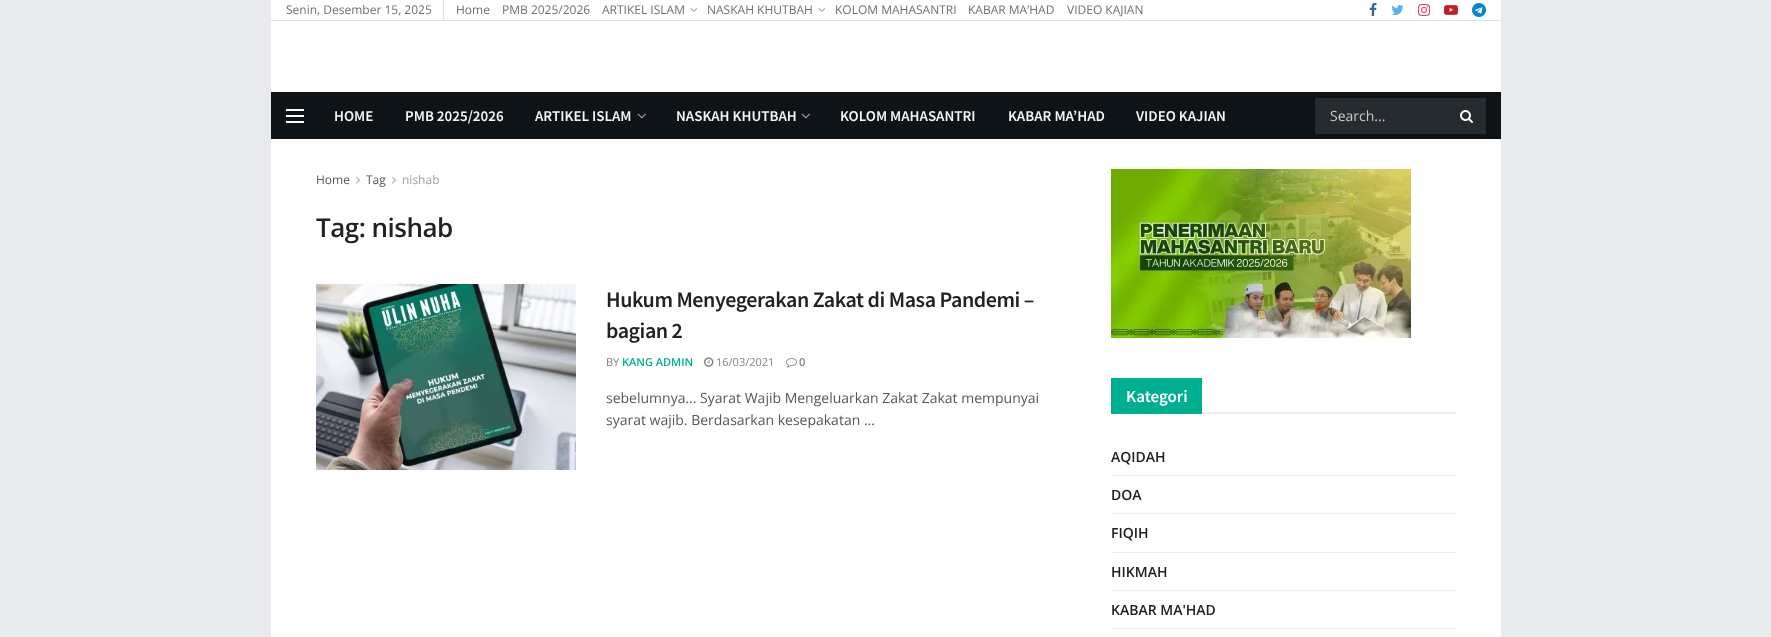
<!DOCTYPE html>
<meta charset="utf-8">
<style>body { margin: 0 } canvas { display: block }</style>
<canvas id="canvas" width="1771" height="637"></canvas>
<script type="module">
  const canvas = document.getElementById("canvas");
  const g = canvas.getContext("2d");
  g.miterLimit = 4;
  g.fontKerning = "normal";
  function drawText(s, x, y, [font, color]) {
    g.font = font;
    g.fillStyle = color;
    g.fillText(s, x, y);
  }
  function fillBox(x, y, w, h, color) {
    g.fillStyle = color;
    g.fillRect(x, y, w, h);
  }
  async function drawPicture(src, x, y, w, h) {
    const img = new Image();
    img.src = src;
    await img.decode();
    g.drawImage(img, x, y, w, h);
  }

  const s1 = ["12px Open Sans", "#6D7073"];
  const s2 = ["600 15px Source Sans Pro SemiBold", "#F5F5F5"];
  const s3 = ["14px Open Sans", "#C9CACB"];
  const s4 = ["12px Open Sans", "#53585C"];
  const s5 = ["12px Open Sans", "#A0A0A0"];
  const s6 = ["600 26px Open Sans", "#212121"];
  const s7 = ["600 22px Source Sans Pro SemiBold", "#212121"];
  const s8 = ["11px Open Sans", "#808386"];
  const s9 = ["600 11px Open Sans", "#00AF91"];
  const s10 = ["600 11px Open Sans", "#808386"];
  const s11 = ["14px Open Sans", "#53585C"];
  const s12 = ["600 17px Source Sans Pro SemiBold", "#FFFFFF"];
  const s13 = ["600 14px Open Sans", "#212121"];

  fillBox(0, 0, 1771, 637, "#E9EAED");
  fillBox(271, 0, 1230, 20, "#FFFFFF");
  fillBox(271, 20, 1230, 1, "#E0E0E0");
  fillBox(443, 0, 1, 20, "#E0E0E0");
  drawText("Senin, Desember 15, 2025", 286, 14, s1);
  drawText("Home", 456, 14, s1);
  drawText("PMB 2025/2026", 502, 14, s1);
  drawText("ARTIKEL ISLAM", 602, 14, s1);
  await drawPicture("pic1.png", 690, 8, 8, 4);
  drawText("NASKAH KHUTBAH", 707, 14, s1);
  await drawPicture("pic1.png", 818, 8, 8, 4);
  drawText("KOLOM MAHASANTRI", 835, 14, s1);
  drawText("KABAR MA’HAD", 968, 14, s1);
  drawText("VIDEO KAJIAN", 1067, 14, s1);
  await drawPicture("pic2.png", 1369, 3, 8, 13);
  await drawPicture("pic3.png", 1391, 5, 13, 10);
  await drawPicture("pic4.png", 1418, 4, 12, 12);
  await drawPicture("pic5.png", 1444, 5, 14, 10);
  await drawPicture("pic6.png", 1472, 3, 14, 14);
  fillBox(271, 21, 1230, 71, "#FFFFFF");
  fillBox(271, 92, 1230, 47, "#0D1317");
  fillBox(286, 109, 18, 2, "#FAFAFA");
  fillBox(286, 115, 18, 2, "#FAFAFA");
  fillBox(286, 121, 18, 2, "#FAFAFA");
  drawText("HOME", 334, 121, s2);
  drawText("PMB 2025/2026", 405, 121, s2);
  drawText("ARTIKEL ISLAM", 535, 121, s2);
  await drawPicture("pic7.png", 637, 113, 9, 6);
  drawText("NASKAH KHUTBAH", 676, 121, s2);
  await drawPicture("pic7.png", 801, 113, 9, 6);
  drawText("KOLOM MAHASANTRI", 840, 121, s2);
  drawText("KABAR MA’HAD", 1008, 121, s2);
  drawText("VIDEO KAJIAN", 1136, 121, s2);
  fillBox(1315, 98, 171, 36, "#252B2E");
  drawText("Search...", 1330, 121, s3);
  await drawPicture("pic8.png", 1460, 110, 13, 13);
  fillBox(271, 139, 1230, 498, "#FFFFFF");
  drawText("Home", 316, 184, s4);
  await drawPicture("pic9.png", 356, 176, 4, 8);
  drawText("Tag", 366, 184, s4);
  await drawPicture("pic9.png", 392, 176, 4, 8);
  drawText("nishab", 402, 184, s5);
  g.letterSpacing = "-0.5px";
  drawText("Tag: nishab", 316, 237, s6);
  await drawPicture("pic10.png", 316, 284, 260, 186);
  g.letterSpacing = "-0.45px";
  drawText("Hukum Menyegerakan Zakat di Masa Pandemi –", 606, 307, s7);
  drawText("bagian 2", 606, 338, s7);
  g.letterSpacing = "0px";
  drawText("BY", 606, 366, s8);
  drawText("KANG ADMIN", 622, 366, s9);
  await drawPicture("pic11.png", 704, 357, 10, 10);
  drawText("16/03/2021", 716, 366, s8);
  await drawPicture("pic12.png", 786, 358, 11, 10);
  drawText("0", 799, 366, s10);
  drawText("sebelumnya... Syarat Wajib Mengeluarkan Zakat Zakat mempunyai", 606, 403, s11);
  drawText("syarat wajib. Berdasarkan kesepakatan ...", 606, 425, s11);
  await drawPicture("pic13.png", 1111, 169, 300, 169);
  fillBox(1202, 412, 254, 2, "#EEEEEE");
  fillBox(1111, 378, 91, 36, "#00AF91");
  drawText("Kategori", 1126, 402, s12);
  drawText("AQIDAH", 1111, 462, s13);
  fillBox(1111, 475, 345, 1, "#EEEEEE");
  drawText("DOA", 1111, 500, s13);
  fillBox(1111, 513, 345, 1, "#EEEEEE");
  drawText("FIQIH", 1111, 538, s13);
  fillBox(1111, 552, 345, 1, "#EEEEEE");
  drawText("HIKMAH", 1111, 577, s13);
  fillBox(1111, 590, 345, 1, "#EEEEEE");
  drawText("KABAR MA'HAD", 1111, 615, s13);
  fillBox(1111, 628, 345, 1, "#EEEEEE");
</script>
